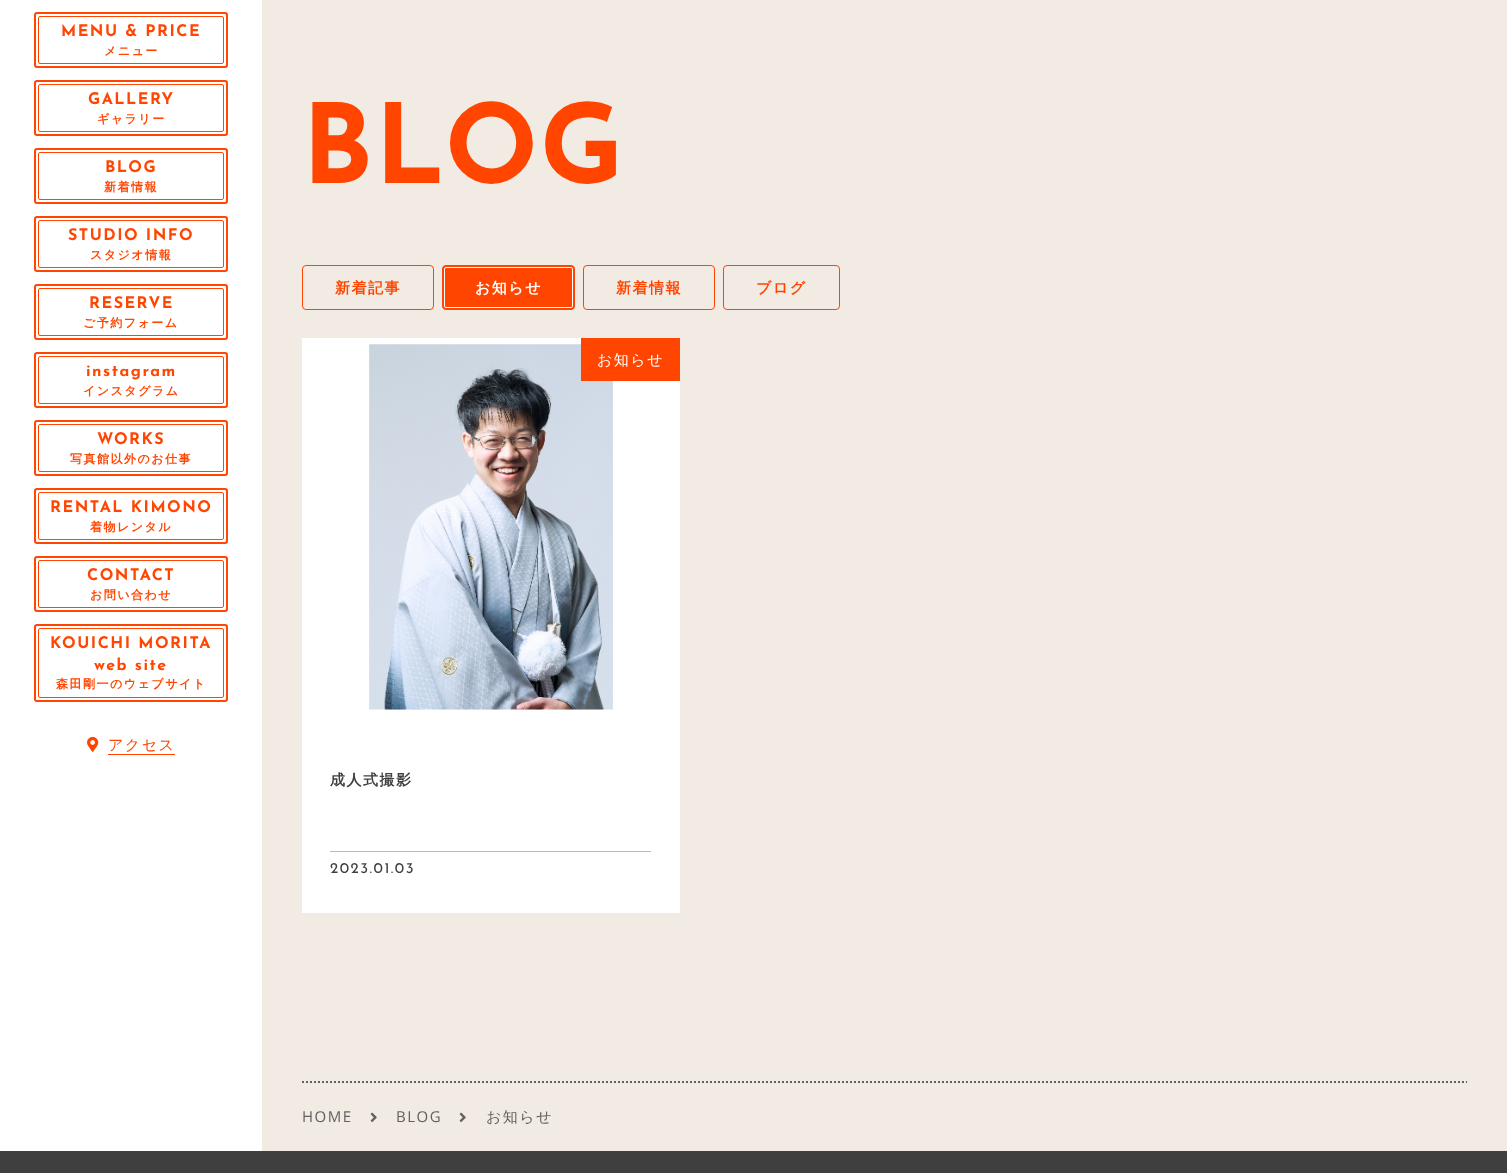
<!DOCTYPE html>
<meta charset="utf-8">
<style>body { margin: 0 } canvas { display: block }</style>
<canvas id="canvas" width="1507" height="1173"></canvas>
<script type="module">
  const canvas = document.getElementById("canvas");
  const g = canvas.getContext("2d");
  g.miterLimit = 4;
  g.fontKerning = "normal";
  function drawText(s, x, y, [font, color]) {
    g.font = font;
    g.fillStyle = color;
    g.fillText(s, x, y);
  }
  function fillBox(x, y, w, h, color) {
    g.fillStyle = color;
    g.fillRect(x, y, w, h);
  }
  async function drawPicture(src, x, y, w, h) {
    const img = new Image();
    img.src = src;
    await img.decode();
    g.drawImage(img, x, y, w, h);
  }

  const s1 = ["bold 16px Josefin Sans", "#FF4500"];
  const s2 = ["bold 12px WenQuanYi Zen Hei", "#FF4500"];
  const s3 = ["500 15px WenQuanYi Zen Hei", "#FF4500"];
  const s4 = ["bold 110px Josefin Sans", "#FF4500"];
  const s5 = ["bold 15px WenQuanYi Zen Hei", "#FF4500"];
  const s6 = ["bold 15px WenQuanYi Zen Hei", "#FFFFFF"];
  const s7 = ["500 15px WenQuanYi Zen Hei", "#FFFFFF"];
  const s8 = ["bold 15px WenQuanYi Zen Hei", "#3F3F3F"];
  const s9 = ["15px Josefin Sans", "#3F3F3F"];
  const s10 = ["15px Open Sans", "#636160"];
  const s11 = ["500 15px WenQuanYi Zen Hei", "#636160"];

  fillBox(0, 0, 1507, 1173, "#FFFFFF");
  g.beginPath();
  g.roundRect(35, 13, 192, 54, 2);
  g.strokeStyle = "#FF4500";
  g.lineWidth = 2;
  g.stroke();
  g.beginPath();
  g.roundRect(38.5, 16.5, 185, 47, 1.5);
  g.lineWidth = 1;
  g.stroke();
  g.letterSpacing = "1.5px";
  drawText("MENU & PRICE", 61, 36, s1);
  drawText("メニュー", 104, 55, s2);
  g.beginPath();
  g.roundRect(35, 81, 192, 54, 2);
  g.lineWidth = 2;
  g.stroke();
  g.beginPath();
  g.roundRect(38.5, 84.5, 185, 47, 1.5);
  g.lineWidth = 1;
  g.stroke();
  drawText("GALLERY", 88, 104, s1);
  drawText("ギャラリー", 97, 123, s2);
  g.beginPath();
  g.roundRect(35, 149, 192, 54, 2);
  g.lineWidth = 2;
  g.stroke();
  g.beginPath();
  g.roundRect(38.5, 152.5, 185, 47, 1.5);
  g.lineWidth = 1;
  g.stroke();
  drawText("BLOG", 105, 172, s1);
  drawText("新着情報", 104, 191, s2);
  g.beginPath();
  g.roundRect(35, 217, 192, 54, 2);
  g.lineWidth = 2;
  g.stroke();
  g.beginPath();
  g.roundRect(38.5, 220.5, 185, 47, 1.5);
  g.lineWidth = 1;
  g.stroke();
  drawText("STUDIO INFO", 68, 240, s1);
  drawText("スタジオ情報", 90, 259, s2);
  g.beginPath();
  g.roundRect(35, 285, 192, 54, 2);
  g.lineWidth = 2;
  g.stroke();
  g.beginPath();
  g.roundRect(38.5, 288.5, 185, 47, 1.5);
  g.lineWidth = 1;
  g.stroke();
  drawText("RESERVE", 89, 308, s1);
  drawText("ご予約フォーム", 83, 327, s2);
  g.beginPath();
  g.roundRect(35, 353, 192, 54, 2);
  g.lineWidth = 2;
  g.stroke();
  g.beginPath();
  g.roundRect(38.5, 356.5, 185, 47, 1.5);
  g.lineWidth = 1;
  g.stroke();
  drawText("instagram", 86, 376, s1);
  drawText("インスタグラム", 83, 395, s2);
  g.beginPath();
  g.roundRect(35, 421, 192, 54, 2);
  g.lineWidth = 2;
  g.stroke();
  g.beginPath();
  g.roundRect(38.5, 424.5, 185, 47, 1.5);
  g.lineWidth = 1;
  g.stroke();
  drawText("WORKS", 97, 444, s1);
  drawText("写真館以外のお仕事", 70, 463, s2);
  g.beginPath();
  g.roundRect(35, 489, 192, 54, 2);
  g.lineWidth = 2;
  g.stroke();
  g.beginPath();
  g.roundRect(38.5, 492.5, 185, 47, 1.5);
  g.lineWidth = 1;
  g.stroke();
  drawText("RENTAL KIMONO", 50, 512, s1);
  drawText("着物レンタル", 90, 531, s2);
  g.beginPath();
  g.roundRect(35, 557, 192, 54, 2);
  g.lineWidth = 2;
  g.stroke();
  g.beginPath();
  g.roundRect(38.5, 560.5, 185, 47, 1.5);
  g.lineWidth = 1;
  g.stroke();
  drawText("CONTACT", 87, 580, s1);
  drawText("お問い合わせ", 90, 599, s2);
  g.beginPath();
  g.roundRect(35, 625, 192, 76, 2);
  g.lineWidth = 2;
  g.stroke();
  g.beginPath();
  g.roundRect(38.5, 628.5, 185, 69, 1.5);
  g.lineWidth = 1;
  g.stroke();
  drawText("KOUICHI MORITA", 50, 648, s1);
  drawText("web site", 94, 670, s1);
  drawText("森田剛一のウェブサイト", 56, 688, s2);
  await drawPicture("pic1.png", 87, 736, 12, 16);
  drawText("アクセス", 108, 750, s3);
  fillBox(108, 754, 67, 1, "#FF4500");
  fillBox(262, 0, 1245, 1151, "#F2EBE3");
  drawText("BLOG", 302, 183, s4);
  g.beginPath();
  g.roundRect(302.5, 265.5, 131, 44, 3.5);
  g.stroke();
  drawText("新着記事", 335, 293, s5);
  g.beginPath();
  g.roundRect(442.5, 265.5, 132, 44, 3.5);
  g.fill();
  g.stroke();
  g.beginPath();
  g.roundRect(444.5, 267.5, 128, 40, 1.5);
  g.strokeStyle = "#FFFFFF";
  g.stroke();
  drawText("お知らせ", 475, 293, s6);
  g.beginPath();
  g.roundRect(583.5, 265.5, 131, 44, 3.5);
  g.strokeStyle = "#FF4500";
  g.stroke();
  drawText("新着情報", 616, 293, s5);
  g.beginPath();
  g.roundRect(723.5, 265.5, 116, 44, 3.5);
  g.stroke();
  drawText("ブログ", 756, 293, s5);
  fillBox(302, 338, 378, 575, "#FFFFFF");
  await drawPicture("pic2.png", 369, 344, 244, 366);
  fillBox(581, 338, 99, 43, "#FF4500");
  drawText("お知らせ", 597, 365, s7);
  drawText("成人式撮影", 330, 785, s8);
  fillBox(330, 851, 321, 1, "#BDBBBA");
  drawText("2023.01.03", 330, 873, s9);
  g.beginPath();
  g.moveTo(302, 1082);
  g.lineTo(1467, 1082);
  g.strokeStyle = "#636160";
  g.lineWidth = 2;
  g.setLineDash([2, 2]);
  g.stroke();
  drawText("HOME", 302, 1122, s10);
  await drawPicture("pic3.png", 370, 1112, 7, 10);
  drawText("BLOG", 396, 1122, s10);
  await drawPicture("pic3.png", 459, 1112, 7, 10);
  drawText("お知らせ", 486, 1122, s11);
  fillBox(0, 1151, 1507, 22, "#3F3F3F");
</script>
